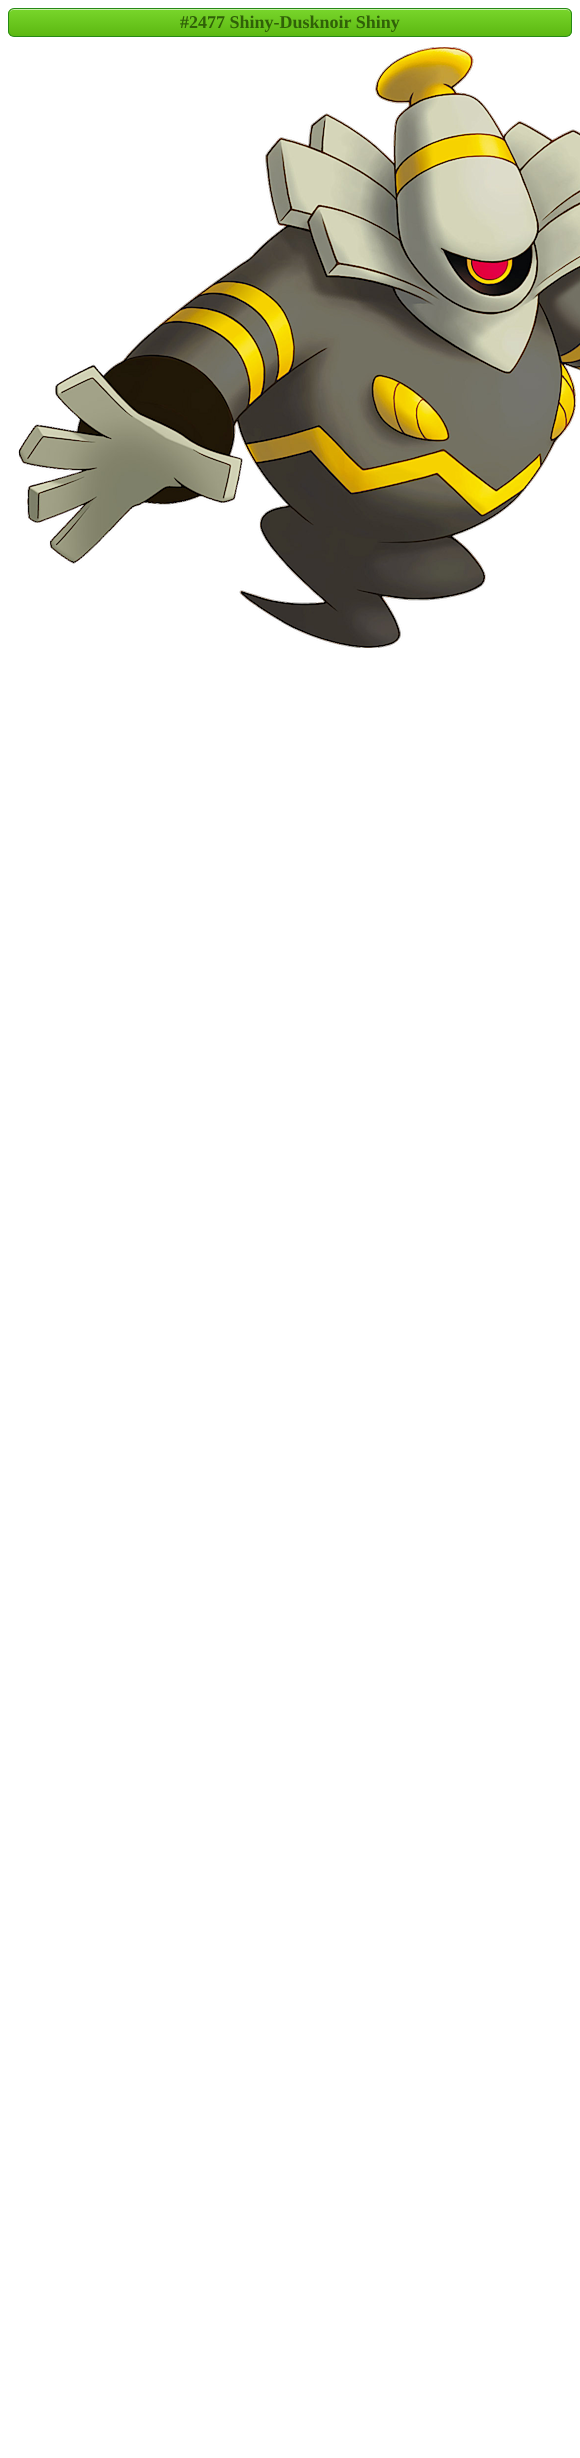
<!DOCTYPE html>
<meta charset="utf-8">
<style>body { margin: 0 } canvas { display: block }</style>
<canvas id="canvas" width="580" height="2458"></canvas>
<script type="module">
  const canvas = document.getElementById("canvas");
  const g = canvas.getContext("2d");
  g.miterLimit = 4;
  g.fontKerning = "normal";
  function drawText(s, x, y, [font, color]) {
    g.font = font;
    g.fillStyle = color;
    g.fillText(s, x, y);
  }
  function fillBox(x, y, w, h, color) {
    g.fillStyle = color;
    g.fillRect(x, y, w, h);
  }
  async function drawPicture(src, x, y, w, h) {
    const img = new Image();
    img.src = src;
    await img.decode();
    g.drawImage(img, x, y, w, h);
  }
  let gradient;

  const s1 = ["bold 18px Liberation Serif", "#306108"];

  fillBox(0, 0, 580, 2458, "#FFFFFF");
  g.save();
  g.beginPath();
  g.roundRect(8, 8, 564, 29, 6);
  g.clip();
  gradient = g.createLinearGradient(290, 9, 290, 36);
  gradient.addColorStop(0.05, "#77D42A");
  gradient.addColorStop(1, "#5CB811");
  g.fillStyle = gradient;
  g.fillRect(8, 9, 564, 27);
  g.restore();
  g.fillStyle = "#CAEFAB";
  g.beginPath();
  g.moveTo(14, 10);
  g.lineTo(566, 10);
  g.bezierCurveTo(569, 10, 571, 12, 571, 15);
  g.bezierCurveTo(571, 12, 569, 9, 566, 9);
  g.lineTo(14, 9);
  g.bezierCurveTo(11, 9, 9, 12, 9, 15);
  g.bezierCurveTo(9, 12, 11, 10, 14, 10);
  g.closePath();
  g.fill();
  g.beginPath();
  g.roundRect(8.5, 8.5, 563, 28, 5.5);
  g.strokeStyle = "#268A16";
  g.stroke();
  drawText("#2477 Shiny-Dusknoir Shiny", 180, 28, s1);
  await drawPicture("pic1.png", 18, 47, 562, 601);
</script>
